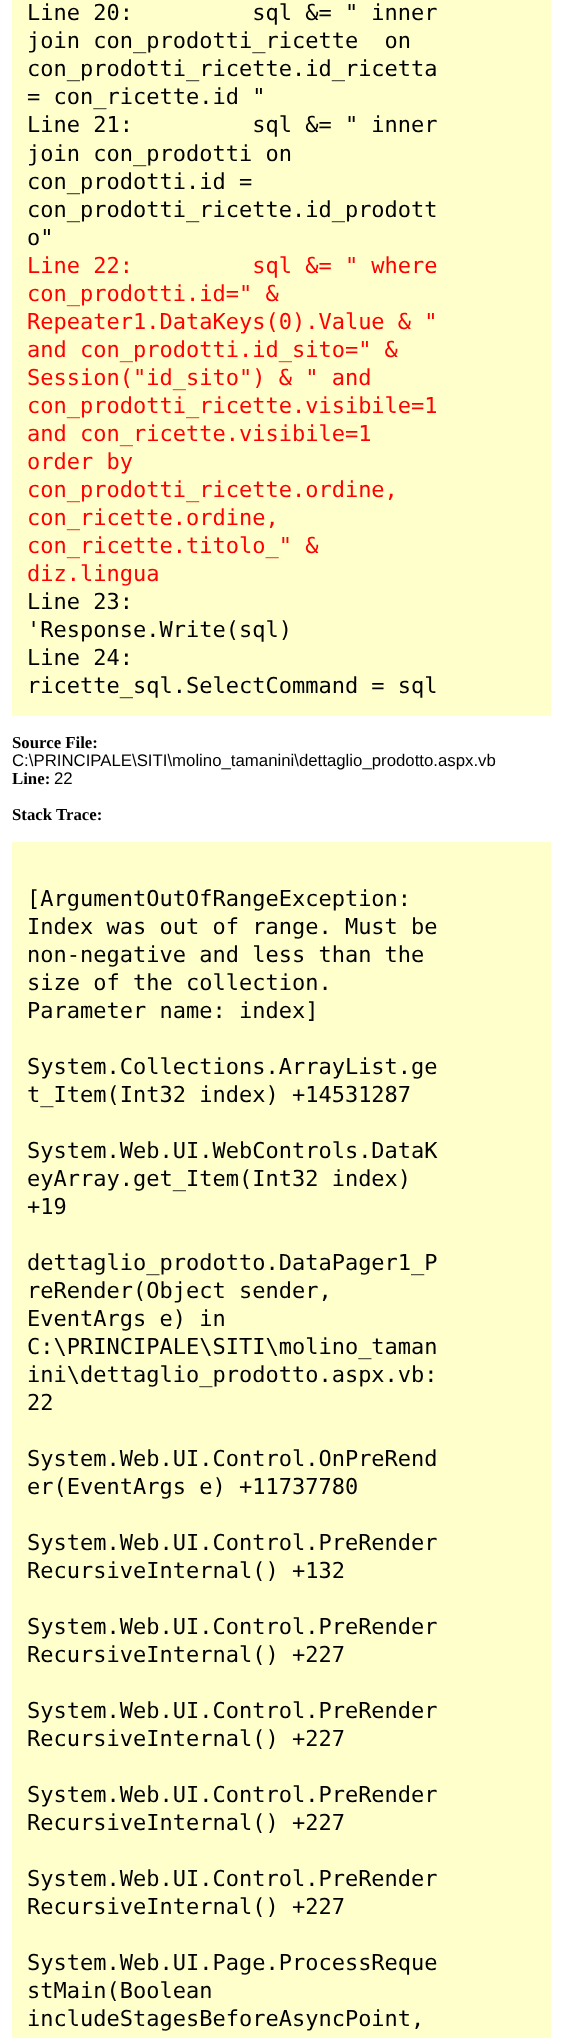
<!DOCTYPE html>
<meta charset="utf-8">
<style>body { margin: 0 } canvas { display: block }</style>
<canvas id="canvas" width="562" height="2038"></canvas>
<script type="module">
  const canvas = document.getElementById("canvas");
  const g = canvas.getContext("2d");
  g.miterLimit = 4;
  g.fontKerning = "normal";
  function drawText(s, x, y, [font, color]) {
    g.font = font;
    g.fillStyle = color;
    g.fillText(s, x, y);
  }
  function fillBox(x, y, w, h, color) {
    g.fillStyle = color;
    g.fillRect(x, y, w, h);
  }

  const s1 = ["22px DejaVu Sans Mono", "#000000"];
  const s2 = ["22px DejaVu Sans Mono", "#FF0000"];
  const s3 = ["bold 16.8px Liberation Serif", "#000000"];
  const s4 = ["16.8px Liberation Sans", "#000000"];

  fillBox(0, 0, 562, 2038, "#FFFFFF");
  fillBox(12, 0, 539, 716, "#FFFFCC");
  drawText("Line 20:         sql &= \" inner", 27, 20, s1);
  drawText("join con_prodotti_ricette  on", 27, 48, s1);
  drawText("con_prodotti_ricette.id_ricetta", 27, 76, s1);
  drawText("= con_ricette.id \"", 27, 104, s1);
  drawText("Line 21:         sql &= \" inner", 27, 132, s1);
  drawText("join con_prodotti on", 27, 161, s1);
  drawText("con_prodotti.id =", 27, 189, s1);
  drawText("con_prodotti_ricette.id_prodott", 27, 217, s1);
  drawText("o\"", 27, 245, s1);
  drawText("Line 22:         sql &= \" where", 27, 273, s2);
  drawText("con_prodotti.id=\" &", 27, 301, s2);
  drawText("Repeater1.DataKeys(0).Value & \"", 27, 329, s2);
  drawText("and con_prodotti.id_sito=\" &", 27, 357, s2);
  drawText("Session(\"id_sito\") & \" and", 27, 385, s2);
  drawText("con_prodotti_ricette.visibile=1", 27, 413, s2);
  drawText("and con_ricette.visibile=1", 27, 441, s2);
  drawText("order by", 27, 469, s2);
  drawText("con_prodotti_ricette.ordine,", 27, 497, s2);
  drawText("con_ricette.ordine,", 27, 525, s2);
  drawText("con_ricette.titolo_\" &", 27, 553, s2);
  drawText("diz.lingua", 27, 581, s2);
  drawText("Line 23:", 27, 609, s1);
  drawText("'Response.Write(sql)", 27, 637, s1);
  drawText("Line 24:", 27, 665, s1);
  drawText("ricette_sql.SelectCommand = sql", 27, 693, s1);
  drawText("Source File:", 12, 748, s3);
  drawText("C:\\PRINCIPALE\\SITI\\molino_tamanini\\dettaglio_prodotto.aspx.vb", 12, 766, s4);
  drawText("Line:", 12, 784, s3);
  drawText("22", 54, 784, s4);
  drawText("Stack Trace:", 12, 820, s3);
  fillBox(12, 842, 539, 1196, "#FFFFCC");
  drawText("[ArgumentOutOfRangeException:", 27, 906, s1);
  drawText("Index was out of range. Must be", 27, 934, s1);
  drawText("non-negative and less than the", 27, 962, s1);
  drawText("size of the collection.", 27, 990, s1);
  drawText("Parameter name: index]", 27, 1018, s1);
  drawText("System.Collections.ArrayList.ge", 27, 1074, s1);
  drawText("t_Item(Int32 index) +14531287", 27, 1102, s1);
  drawText("System.Web.UI.WebControls.DataK", 27, 1158, s1);
  drawText("eyArray.get_Item(Int32 index)", 27, 1186, s1);
  drawText("+19", 27, 1214, s1);
  drawText("dettaglio_prodotto.DataPager1_P", 27, 1270, s1);
  drawText("reRender(Object sender,", 27, 1298, s1);
  drawText("EventArgs e) in", 27, 1326, s1);
  drawText("C:\\PRINCIPALE\\SITI\\molino_taman", 27, 1354, s1);
  drawText("ini\\dettaglio_prodotto.aspx.vb:", 27, 1382, s1);
  drawText("22", 27, 1410, s1);
  drawText("System.Web.UI.Control.OnPreRend", 27, 1466, s1);
  drawText("er(EventArgs e) +11737780", 27, 1494, s1);
  drawText("System.Web.UI.Control.PreRender", 27, 1550, s1);
  drawText("RecursiveInternal() +132", 27, 1578, s1);
  drawText("System.Web.UI.Control.PreRender", 27, 1634, s1);
  drawText("RecursiveInternal() +227", 27, 1662, s1);
  drawText("System.Web.UI.Control.PreRender", 27, 1718, s1);
  drawText("RecursiveInternal() +227", 27, 1746, s1);
  drawText("System.Web.UI.Control.PreRender", 27, 1802, s1);
  drawText("RecursiveInternal() +227", 27, 1830, s1);
  drawText("System.Web.UI.Control.PreRender", 27, 1886, s1);
  drawText("RecursiveInternal() +227", 27, 1914, s1);
  drawText("System.Web.UI.Page.ProcessReque", 27, 1970, s1);
  drawText("stMain(Boolean", 27, 1998, s1);
  drawText("includeStagesBeforeAsyncPoint,", 27, 2026, s1);
</script>
